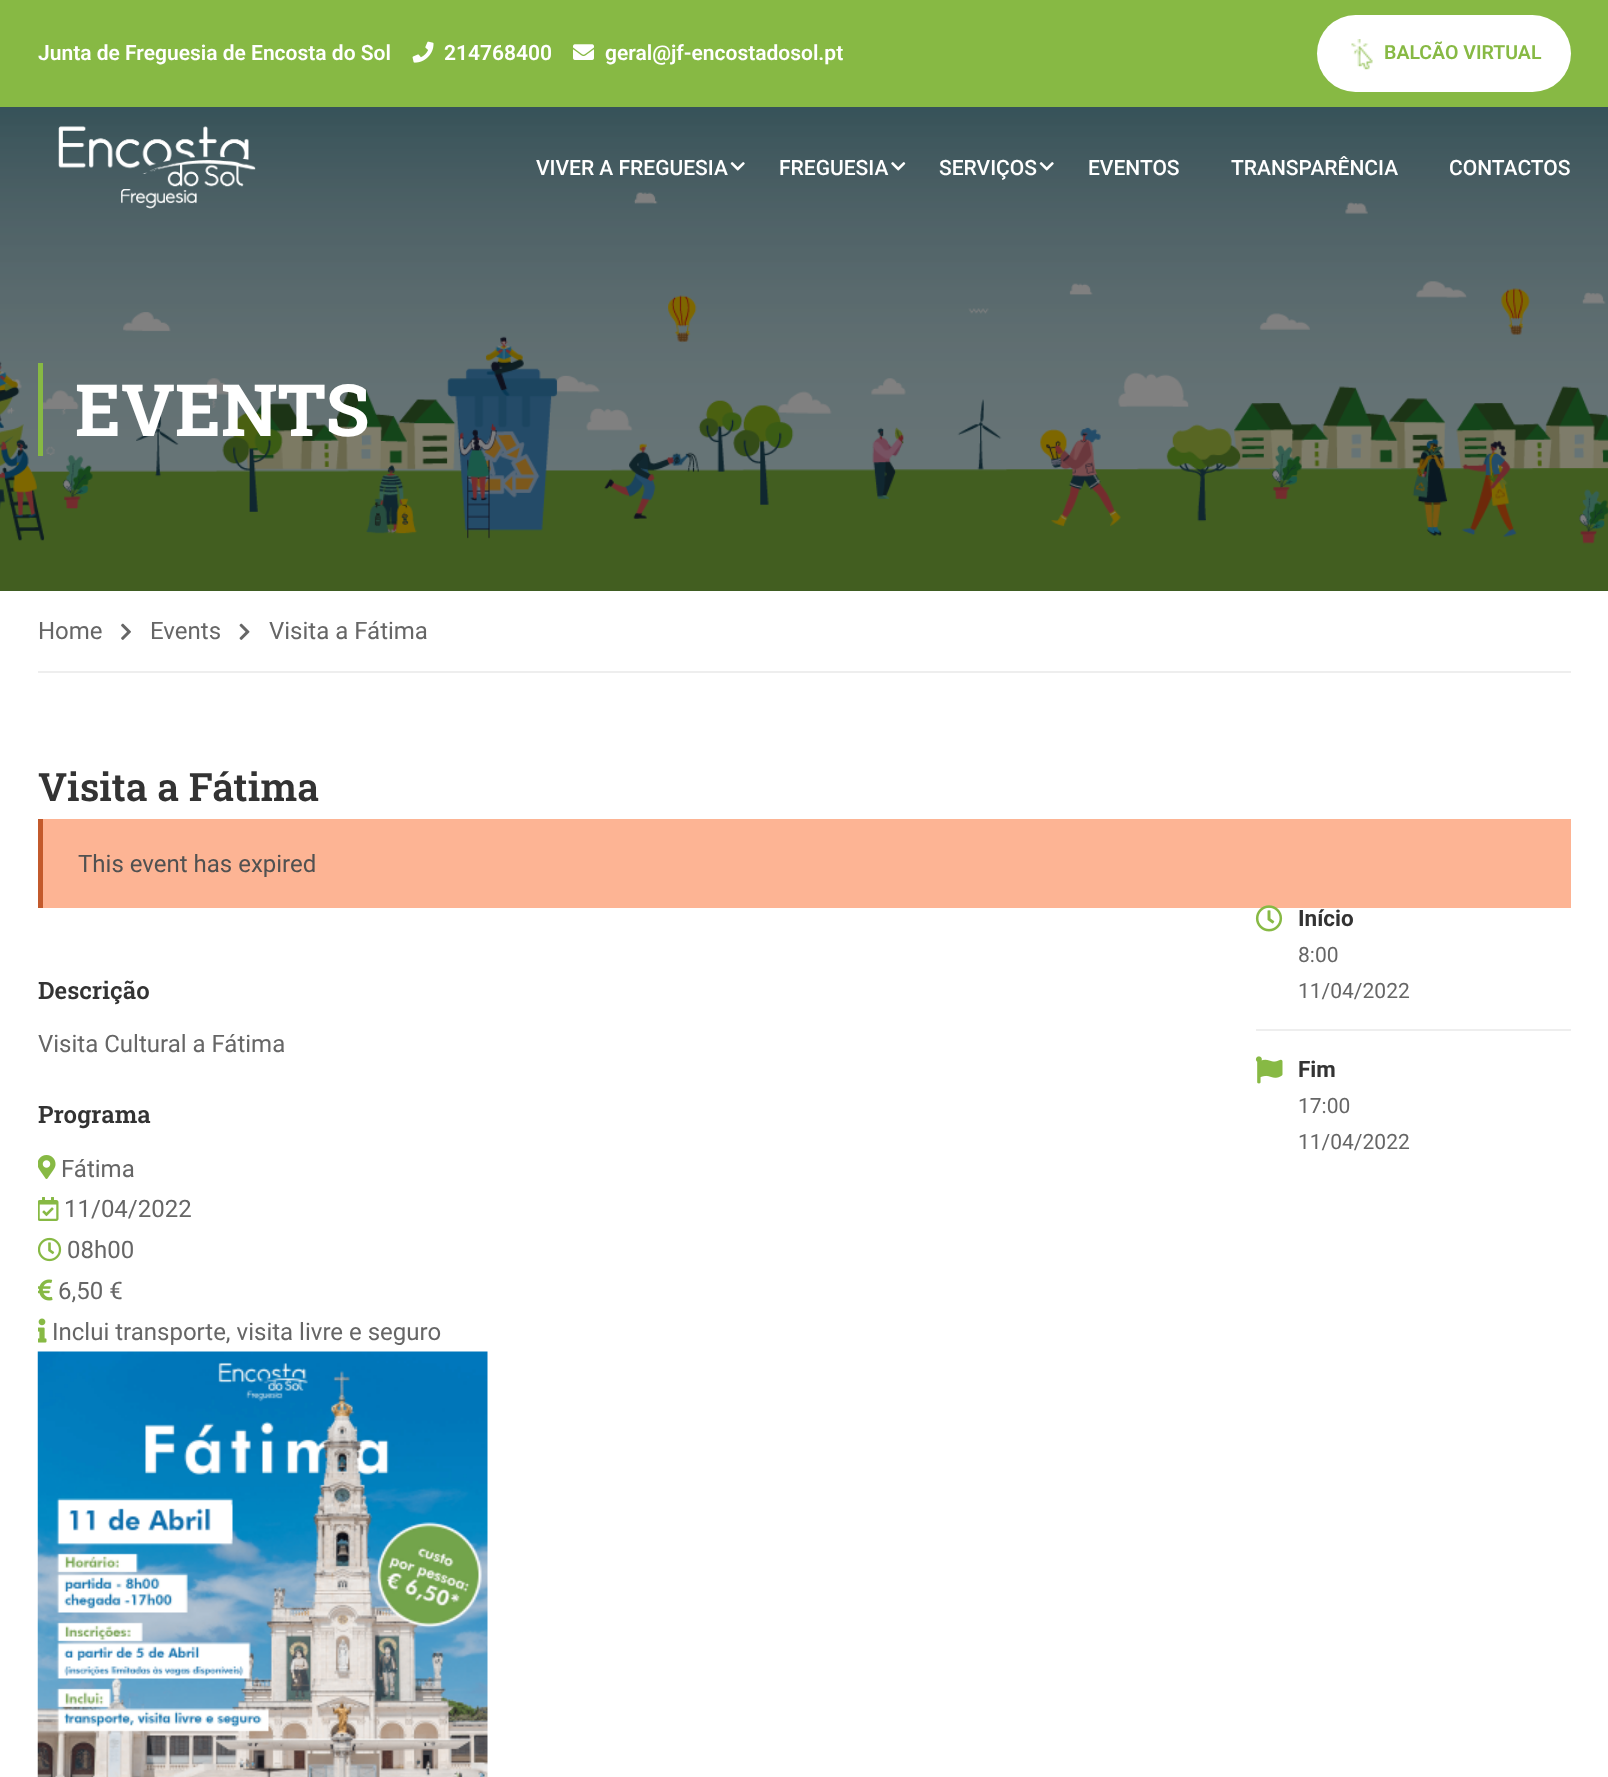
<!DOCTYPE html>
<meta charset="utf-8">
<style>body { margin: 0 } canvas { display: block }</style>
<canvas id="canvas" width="1608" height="1777"></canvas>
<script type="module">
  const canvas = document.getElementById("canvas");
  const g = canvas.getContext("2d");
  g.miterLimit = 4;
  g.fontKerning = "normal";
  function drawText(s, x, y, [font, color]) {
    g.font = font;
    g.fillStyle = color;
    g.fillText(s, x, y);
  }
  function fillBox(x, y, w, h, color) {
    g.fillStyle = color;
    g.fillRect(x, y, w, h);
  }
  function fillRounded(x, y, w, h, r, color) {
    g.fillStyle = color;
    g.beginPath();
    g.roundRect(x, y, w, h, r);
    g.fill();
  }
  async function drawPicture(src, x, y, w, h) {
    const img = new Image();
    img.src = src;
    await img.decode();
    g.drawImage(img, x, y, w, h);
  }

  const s1 = ["600 21px Roboto", "#FFFFFF"];
  const s2 = ["600 19.5px Roboto", "#87B944"];
  const s3 = ["500 21px Roboto", "#FFFFFF"];
  const s4 = ["bold 72px Roboto Slab", "#FFFFFF"];
  const s5 = ["24px Roboto", "#666666"];
  const s6 = ["600 39px Roboto Slab", "#333333"];
  const s7 = ["24px Roboto", "#515151"];
  const s8 = ["600 24px Roboto Slab", "#333333"];
  const s9 = ["bold 22.5px Roboto", "#333333"];
  const s10 = ["21px Roboto", "#666666"];

  fillBox(0, 0, 1608, 1777, "#FFFFFF");
  fillBox(0, 0, 1608, 107, "#87B944");
  drawText("Junta de Freguesia de Encosta do Sol", 38, 60, s1);
  await drawPicture("pic1.png", 412, 41, 22, 22);
  drawText("214768400", 444, 60, s1);
  await drawPicture("pic2.png", 573, 44, 21, 16);
  drawText("geral@jf-encostadosol.pt", 605, 60, s1);
  fillRounded(1317, 15, 254, 77, 38.5, "#FFFFFF");
  await drawPicture("pic3.png", 1351, 39, 22, 31);
  drawText("BALCÃO VIRTUAL", 1384, 59, s2);
  await drawPicture("pic7.png", 0, 107, 1608, 484);
  await drawPicture("pic4.png", 58, 126, 198, 83);
  drawText("VIVER A FREGUESIA", 536, 175, s3);
  await drawPicture("pic5.png", 730, 162, 15, 9);
  drawText("FREGUESIA", 779, 175, s3);
  await drawPicture("pic6.png", 891, 162, 15, 9);
  drawText("SERVIÇOS", 939, 175, s3);
  await drawPicture("pic5.png", 1039, 162, 15, 9);
  drawText("EVENTOS", 1088, 175, s3);
  drawText("TRANSPARÊNCIA", 1231, 175, s3);
  drawText("CONTACTOS", 1449, 175, s3);
  fillBox(38, 363, 5, 93, "#87B944");
  drawText("EVENTS", 75, 436, s4);
  fillBox(38, 671, 1533, 2, "#EEEEEE");
  drawText("Home", 38, 639, s5);
  await drawPicture("pic8.png", 121, 623, 10, 17);
  drawText("Events", 150, 639, s5);
  await drawPicture("pic9.png", 239, 623, 11, 17);
  drawText("Visita a Fátima", 269, 639, s5);
  drawText("Visita a Fátima", 38, 801, s6);
  fillBox(43, 819, 1528, 89, "#FDB494");
  fillBox(38, 819, 5, 89, "#C35A2C");
  drawText("This event has expired", 78, 872, s7);
  drawText("Descrição", 38, 999, s8);
  drawText("Visita Cultural a Fátima", 38, 1052, s5);
  drawText("Programa", 38, 1123, s8);
  await drawPicture("pic10.png", 38, 1155, 18, 24);
  drawText("Fátima", 61, 1177, s5);
  await drawPicture("pic11.png", 38, 1197, 21, 24);
  drawText("11/04/2022", 64, 1217, s5);
  await drawPicture("pic12.png", 38, 1237, 24, 25);
  drawText("08h00", 67, 1258, s5);
  await drawPicture("pic13.png", 38, 1279, 15, 22);
  drawText("6,50 €", 58, 1299, s5);
  await drawPicture("pic14.png", 38, 1318, 9, 25);
  drawText("Inclui transporte, visita livre e seguro", 52, 1340, s5);
  await drawPicture("pic15.png", 37, 1351, 451, 426);
  fillBox(1256, 1029, 315, 2, "#EEEEEE");
  await drawPicture("pic16.png", 1255, 905, 28, 27);
  drawText("Início", 1298, 926, s9);
  drawText("8:00", 1298, 962, s10);
  drawText("11/04/2022", 1298, 998, s10);
  await drawPicture("pic17.png", 1255, 1056, 28, 28);
  drawText("Fim", 1298, 1077, s9);
  drawText("17:00", 1298, 1113, s10);
  drawText("11/04/2022", 1298, 1149, s10);
</script>
